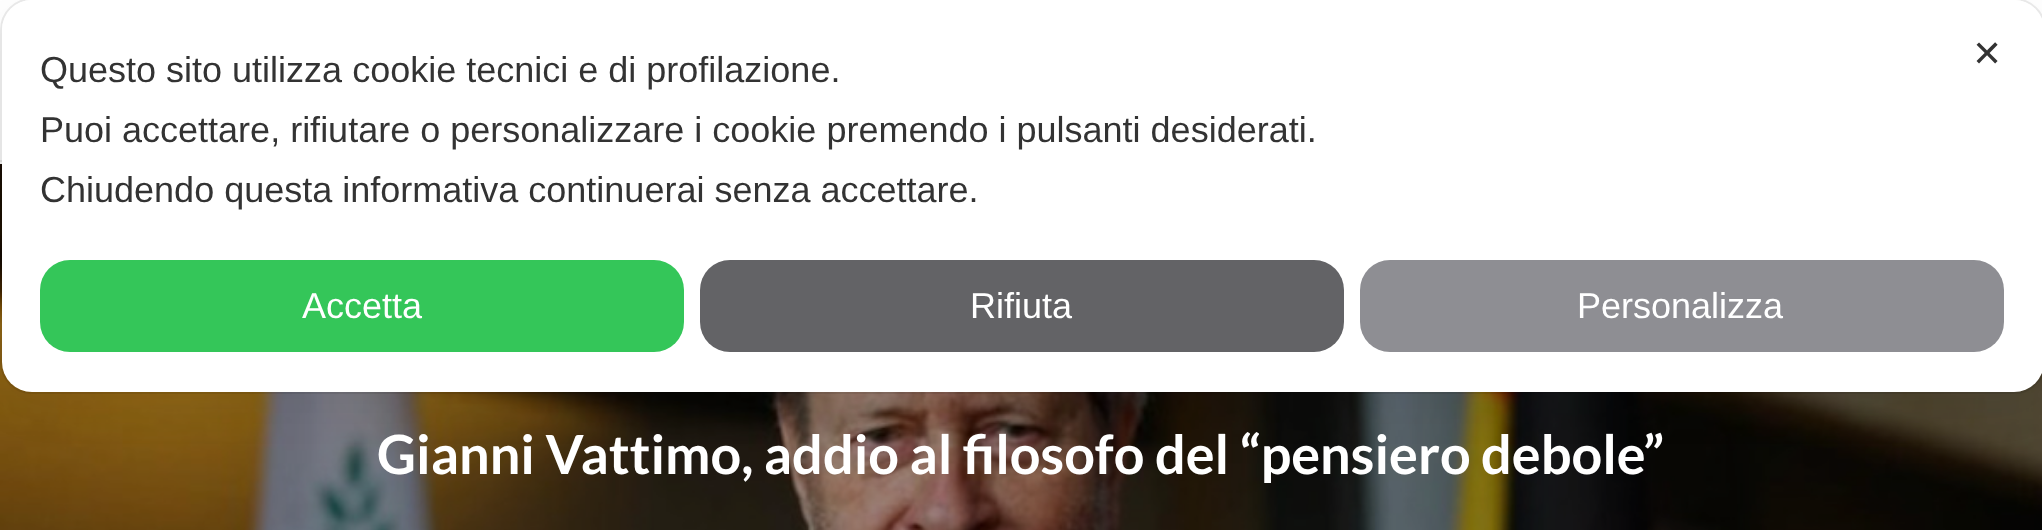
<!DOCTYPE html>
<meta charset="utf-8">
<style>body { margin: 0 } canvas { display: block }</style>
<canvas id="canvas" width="2042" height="530"></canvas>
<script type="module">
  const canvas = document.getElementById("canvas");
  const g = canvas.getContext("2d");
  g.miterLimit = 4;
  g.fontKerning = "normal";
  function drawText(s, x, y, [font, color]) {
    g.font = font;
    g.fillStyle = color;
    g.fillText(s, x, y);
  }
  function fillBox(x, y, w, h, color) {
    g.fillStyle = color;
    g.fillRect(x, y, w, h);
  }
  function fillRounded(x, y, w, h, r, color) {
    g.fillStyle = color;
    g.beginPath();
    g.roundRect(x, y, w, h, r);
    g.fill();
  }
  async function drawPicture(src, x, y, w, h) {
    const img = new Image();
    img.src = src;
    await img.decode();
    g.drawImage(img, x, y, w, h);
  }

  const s1 = ["36px Liberation Sans", "#333333"];
  const s2 = ["36px Liberation Sans", "#FFFFFF"];
  const s3 = ["36px DejaVu Sans", "#333333"];
  const s4 = ["bold 54px Lato", "#FFFFFF"];

  fillBox(0, 0, 2042, 530, "#FFFFFF");
  fillBox(0, 160, 2, 2, "#EDEDED");
  await drawPicture("pic1.png", 0, 164, 2042, 366);
  g.beginPath();
  g.roundRect(1, -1, 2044, 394, 31);
  g.strokeStyle = "rgba(0, 0, 0, 0.08)";
  g.lineWidth = 2;
  g.stroke();
  g.fillStyle = "rgba(0, 0, 0, 0.05)";
  g.filter = "blur(24px)";
  g.beginPath();
  g.roundRect(2, 12, 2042, 392, 30);
  g.fill();
  g.filter = "none";
  fillRounded(2, 0, 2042, 392, 30, "#FFFFFF");
  drawText("Questo sito utilizza cookie tecnici e di profilazione.", 40, 82, s1);
  drawText("Puoi accettare, rifiutare o personalizzare i cookie premendo i pulsanti desiderati.", 40, 142, s1);
  drawText("Chiudendo questa informativa continuerai senza accettare.", 40, 202, s1);
  fillRounded(40, 260, 644, 92, 30, "#34C659");
  drawText("Accetta", 302, 318, s2);
  fillRounded(700, 260, 644, 92, 30, "#636366");
  drawText("Rifiuta", 970, 318, s2);
  fillRounded(1360, 260, 644, 92, 30, "#8E8E93");
  drawText("Personalizza", 1577, 318, s2);
  drawText("✕", 1972, 66, s3);
  drawText("Gianni Vattimo, addio al filosofo del “pensiero debole”", 377, 474, s4);
</script>
